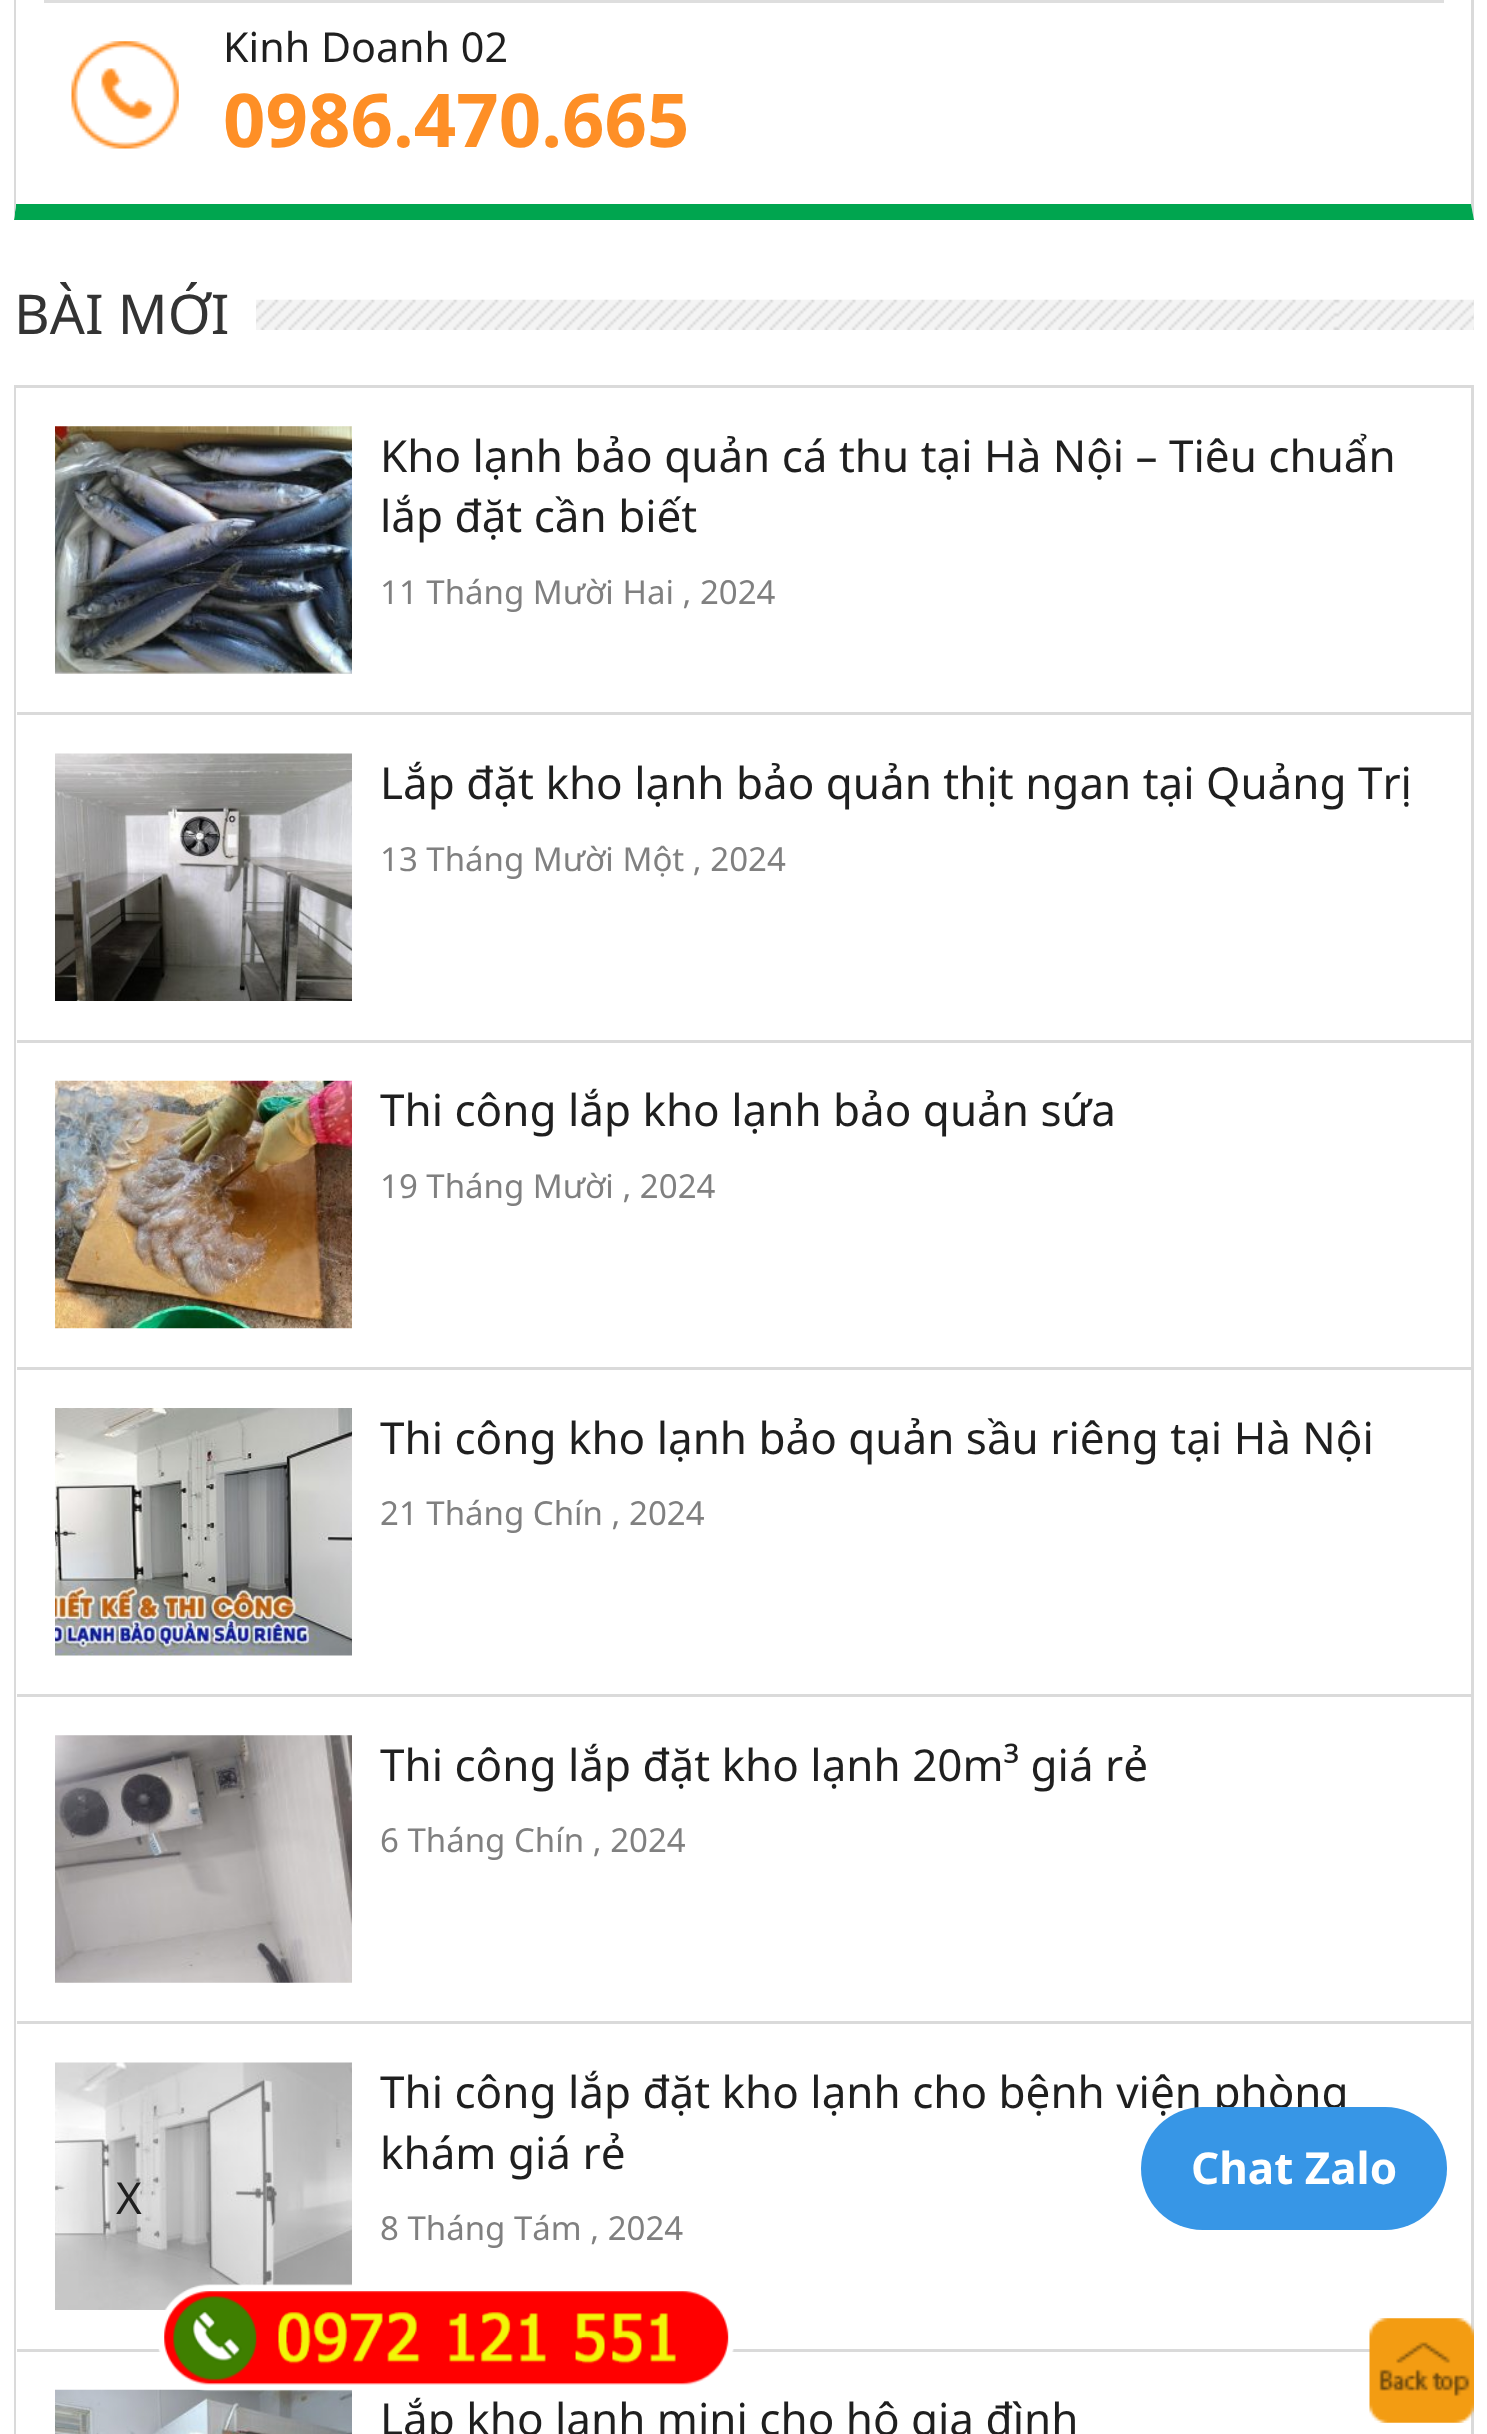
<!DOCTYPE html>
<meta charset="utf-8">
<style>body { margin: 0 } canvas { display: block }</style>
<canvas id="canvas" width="1487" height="2434"></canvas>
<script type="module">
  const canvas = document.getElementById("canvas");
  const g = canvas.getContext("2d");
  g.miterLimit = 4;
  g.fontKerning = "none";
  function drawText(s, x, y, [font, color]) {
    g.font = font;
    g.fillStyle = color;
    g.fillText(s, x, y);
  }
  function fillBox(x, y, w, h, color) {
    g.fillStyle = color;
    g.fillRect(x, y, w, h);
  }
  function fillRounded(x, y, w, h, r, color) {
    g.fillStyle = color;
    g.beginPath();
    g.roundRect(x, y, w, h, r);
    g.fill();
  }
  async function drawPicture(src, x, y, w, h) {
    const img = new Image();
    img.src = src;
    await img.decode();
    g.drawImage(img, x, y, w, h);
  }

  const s1 = ["41.25px Noto Sans", "#1F1F1F"];
  const s2 = ["bold 74.25px Noto Sans", "#FE8F26"];
  const s3 = ["55px Noto Sans", "#333333"];
  const s4 = ["44px Noto Sans", "#1F1F1F"];
  const s5 = ["33px Noto Sans", "#808080"];
  const s6 = ["bold 44px Noto Sans", "#FFFFFF"];

  fillBox(0, 0, 1487, 2434, "#FFFFFF");
  g.fillStyle = "#DADADA";
  g.beginPath();
  g.moveTo(1474, -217);
  g.lineTo(1474, 220);
  g.lineTo(1471, 204);
  g.lineTo(1471, -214);
  g.closePath();
  g.fill();
  g.fillStyle = "#00A54F";
  g.beginPath();
  g.moveTo(1474, 220);
  g.lineTo(14, 220);
  g.lineTo(16, 204);
  g.lineTo(1471, 204);
  g.closePath();
  g.fill();
  g.fillStyle = "#DADADA";
  g.beginPath();
  g.moveTo(14, 220);
  g.lineTo(14, -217);
  g.lineTo(16, -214);
  g.lineTo(16, 204);
  g.closePath();
  g.fill();
  fillBox(44, 0, 1400, 3, "#DEDEDE");
  await drawPicture("pic1.png", 71, 41, 108, 108);
  drawText("Kinh Doanh 02", 223, 62, s1);
  drawText("0986.470.665", 223, 147, s2);
  await drawPicture("pic2.png", 256, 299, 1218, 31);
  drawText("BÀI MỚI", 14, 334, s3);
  fillBox(14, 385, 1460, 3, "#DADADA");
  g.beginPath();
  g.moveTo(1474, 385);
  g.lineTo(1474, 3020);
  g.lineTo(1471, 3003);
  g.lineTo(1471, 388);
  g.closePath();
  g.fill();
  g.beginPath();
  g.moveTo(14, 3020);
  g.lineTo(14, 385);
  g.lineTo(16, 388);
  g.lineTo(16, 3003);
  g.closePath();
  g.fill();
  fillBox(17, 712, 1454, 3, "#DADADA");
  await drawPicture("pic3.png", 55, 426, 297, 248);
  drawText("Kho lạnh bảo quản cá thu tại Hà Nội – Tiêu chuẩn", 380, 472, s4);
  drawText("lắp đặt cần biết", 380, 532, s4);
  drawText("11 Tháng Mười Hai , 2024", 380, 604, s5);
  fillBox(17, 1040, 1454, 3, "#DADADA");
  await drawPicture("pic4.png", 55, 753, 297, 248);
  drawText("Lắp đặt kho lạnh bảo quản thịt ngan tại Quảng Trị", 380, 799, s4);
  drawText("13 Tháng Mười Một , 2024", 380, 871, s5);
  fillBox(17, 1367, 1454, 3, "#DADADA");
  await drawPicture("pic5.png", 55, 1080, 297, 249);
  drawText("Thi công lắp kho lạnh bảo quản sứa", 380, 1126, s4);
  drawText("19 Tháng Mười , 2024", 380, 1198, s5);
  fillBox(17, 1694, 1454, 3, "#DADADA");
  await drawPicture("pic6.png", 55, 1408, 297, 248);
  drawText("Thi công kho lạnh bảo quản sầu riêng tại Hà Nội", 380, 1454, s4);
  drawText("21 Tháng Chín , 2024", 380, 1525, s5);
  fillBox(17, 2021, 1454, 3, "#DADADA");
  await drawPicture("pic7.png", 55, 1735, 297, 248);
  drawText("Thi công lắp đặt kho lạnh 20m³ giá rẻ", 380, 1781, s4);
  drawText("6 Tháng Chín , 2024", 380, 1852, s5);
  fillBox(17, 2349, 1353, 3, "#DADADA");
  await drawPicture("pic8.png", 55, 2062, 297, 248);
  drawText("Thi công lắp đặt kho lạnh cho bệnh viện phòng", 380, 2108, s4);
  drawText("khám giá rẻ", 380, 2169, s4);
  drawText("8 Tháng Tám , 2024", 380, 2240, s5);
  await drawPicture("pic9.png", 55, 2389, 297, 45);
  drawText("Lắp kho lạnh mini cho hộ gia đình", 380, 2435, s4);
  fillRounded(1141, 2107, 306, 123, 61.5, "#3796E6");
  drawText("Chat Zalo", 1191, 2184, s6);
  drawText("X", 116, 2214, s4);
  await drawPicture("pic10.png", 158, 2284, 576, 108);
  await drawPicture("pic11.png", 1369, 2318, 105, 105);
</script>
